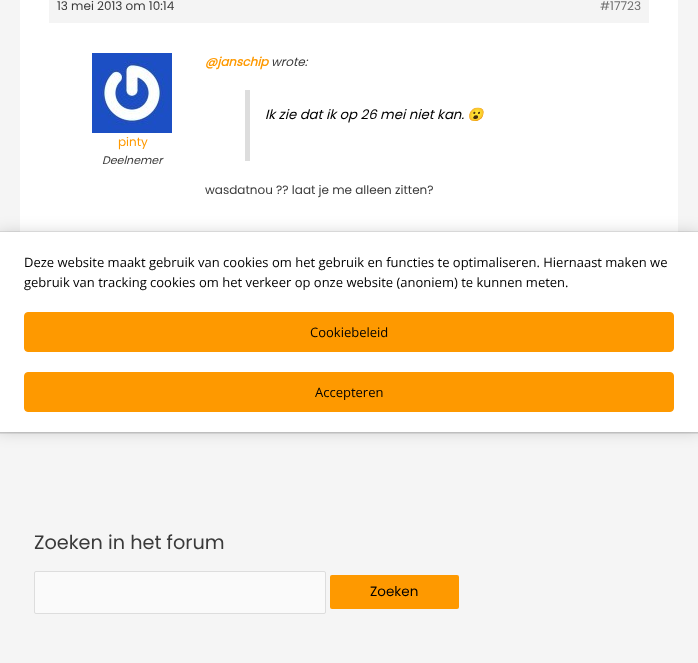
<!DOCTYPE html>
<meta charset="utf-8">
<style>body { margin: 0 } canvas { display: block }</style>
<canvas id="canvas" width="698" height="663"></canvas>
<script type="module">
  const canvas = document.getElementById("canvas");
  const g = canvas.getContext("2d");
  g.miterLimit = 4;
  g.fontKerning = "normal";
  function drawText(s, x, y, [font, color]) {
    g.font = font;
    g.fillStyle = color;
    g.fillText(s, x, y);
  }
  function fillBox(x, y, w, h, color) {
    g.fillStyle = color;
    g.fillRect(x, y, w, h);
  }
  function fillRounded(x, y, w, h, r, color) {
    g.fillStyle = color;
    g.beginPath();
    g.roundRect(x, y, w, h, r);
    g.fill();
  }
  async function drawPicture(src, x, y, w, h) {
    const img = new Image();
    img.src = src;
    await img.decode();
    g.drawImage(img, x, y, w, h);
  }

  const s1 = ["12px Poppins", "#3A3A3A"];
  const s2 = ["12px Poppins", "#707070"];
  const s3 = ["12px Poppins", "#FE9900"];
  const s4 = ["italic 11px Poppins", "#3A3A3A"];
  const s5 = ["italic bold 12px Poppins", "#FE9900"];
  const s6 = ["italic 12px Poppins", "#3A3A3A"];
  const s7 = ["italic 13.25px Poppins", "#000000"];
  const s8 = ["italic 13.25px Noto Color Emoji", "#000000"];
  const s9 = ["19.25px Poppins", "#3A3A3A"];
  const s10 = ["13.5px Poppins", "#000000"];
  const s11 = ["13px Open Sans", "#000000"];

  fillBox(0, 0, 698, 663, "#F5F5F5");
  fillBox(20, 0, 658, 232, "#FFFFFF");
  fillBox(49, 0, 600, 23, "#F4F4F4");
  drawText("13 mei 2013 om 10:14", 57, 10, s1);
  drawText("#17723", 600, 10, s2);
  await drawPicture("pic1.png", 92, 53, 80, 80);
  drawText("pinty", 118, 146, s3);
  drawText("Deelnemer", 102, 164, s4);
  drawText("@janschip", 205, 66, s5);
  drawText("wrote:", 271, 66, s6);
  fillBox(245, 90, 5, 71, "#DDDDDD");
  drawText("Ik zie dat ik op 26 mei niet kan.", 265, 119, s7);
  drawText("😮", 467, 119, s8);
  drawText("wasdatnou ?? laat je me alleen zitten?", 205, 194, s1);
  drawText("Zoeken in het forum", 34, 549, s9);
  g.fillStyle = "#FAFAFA";
  g.beginPath();
  g.roundRect(34.5, 571.5, 291, 42, 1.5);
  g.fill();
  g.strokeStyle = "#DDDDDD";
  g.stroke();
  fillRounded(330, 575, 129, 34, 2, "#FE9900");
  drawText("Zoeken", 370, 596, s10);
  g.fillStyle = "rgba(0, 0, 0, 0.31)";
  g.filter = "blur(10px)";
  g.beginPath();
  g.rect(-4, 238, 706, 188);
  g.fill();
  g.filter = "none";
  g.fillStyle = "rgba(0, 0, 0, 0.08)";
  g.filter = "blur(0.5px)";
  g.beginPath();
  g.rect(-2, 234, 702, 200);
  g.fill();
  g.filter = "none";
  g.strokeStyle = "rgba(0, 0, 0, 0.08)";
  g.strokeRect(-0.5, 231.5, 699, 201);
  fillBox(0, 232, 698, 200, "#FFFFFF");
  drawText("Deze website maakt gebruik van cookies om het gebruik en functies te optimaliseren. Hiernaast maken we", 24, 267, s11);
  drawText("gebruik van tracking cookies om het verkeer op onze website (anoniem) te kunnen meten.", 24, 287, s11);
  g.fillStyle = "#FE9900";
  g.beginPath();
  g.roundRect(24.5, 312.5, 649, 39, 3.5);
  g.fill();
  g.strokeStyle = "#FE9900";
  g.stroke();
  drawText("Cookiebeleid", 310, 337, s11);
  g.fillStyle = "#FE9900";
  g.beginPath();
  g.roundRect(24.5, 372.5, 649, 39, 3.5);
  g.fill();
  g.stroke();
  drawText("Accepteren", 315, 397, s11);
</script>
